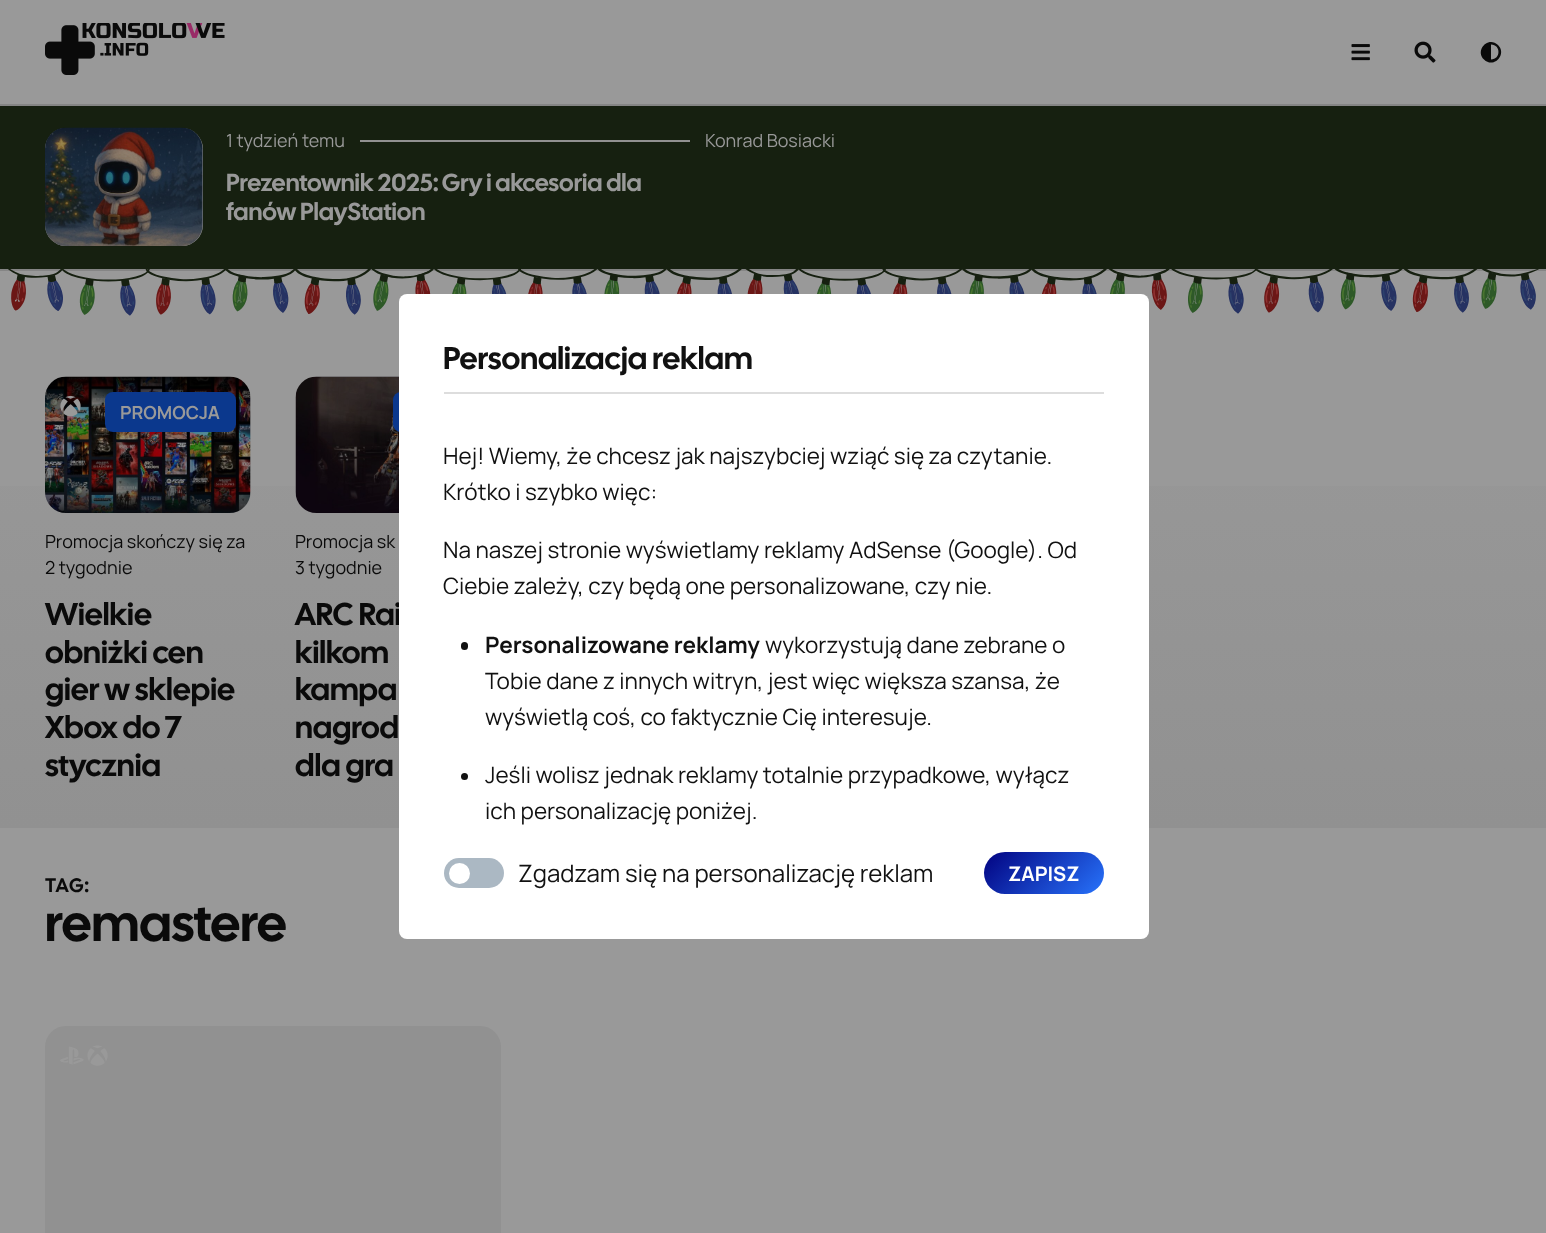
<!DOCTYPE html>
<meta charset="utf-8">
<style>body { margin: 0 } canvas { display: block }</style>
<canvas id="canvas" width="1546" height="1233"></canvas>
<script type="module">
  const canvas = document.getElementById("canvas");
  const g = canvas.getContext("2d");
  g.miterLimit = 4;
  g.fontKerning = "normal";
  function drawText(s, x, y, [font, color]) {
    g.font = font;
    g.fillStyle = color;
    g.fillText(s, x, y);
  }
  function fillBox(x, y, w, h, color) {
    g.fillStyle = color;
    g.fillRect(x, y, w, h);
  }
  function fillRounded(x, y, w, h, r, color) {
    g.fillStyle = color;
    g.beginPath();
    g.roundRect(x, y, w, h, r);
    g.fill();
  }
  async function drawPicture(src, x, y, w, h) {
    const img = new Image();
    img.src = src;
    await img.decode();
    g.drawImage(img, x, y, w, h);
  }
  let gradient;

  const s1 = ["18px Manrope", "#999999"];
  const s2 = ["24.6px Cal Sans", "#999999"];
  const s3 = ["bold 18px Manrope", "#999999"];
  const s4 = ["18px Manrope", "#0A0A0A"];
  const s5 = ["31.5px Cal Sans", "#0A0A0A"];
  const s6 = ["31.5px Cal Sans", "#111111"];
  const s7 = ["22.5px Manrope", "#111111"];
  const s8 = ["bold 22.5px Manrope", "#111111"];
  const s9 = ["24px Manrope", "#111111"];
  const s10 = ["bold 20px Manrope", "#FFFFFF"];
  const s11 = ["19.5px Cal Sans", "#0A0A0A"];
  const s12 = ["52.5px Cal Sans", "#0A0A0A"];

  fillBox(0, 0, 1546, 1233, "#999999");
  fillBox(0, 104, 1546, 2, "#858585");
  await drawPicture("pic1.png", 45, 23, 180, 52);
  await drawPicture("pic2.png", 1351, 44, 19, 17);
  await drawPicture("pic3.png", 1414, 41, 22, 22);
  g.fillStyle = "#0A0A0A";
  g.beginPath();
  g.moveTo(1484, 59.5);
  g.bezierCurveTo(1474.5, 50, 1488.5, 35.5, 1498, 45);
  g.bezierCurveTo(1507.5, 54.5, 1493.5, 69, 1484, 59.5);
  g.closePath();
  g.moveTo(1491, 59.5);
  g.bezierCurveTo(1501, 59.5, 1501, 44.5, 1491, 44.5);
  g.closePath();
  g.fill();
  fillBox(0, 106, 1546, 163, "#162010");
  fillBox(0, 269, 1546, 2, "#858585");
  fillRounded(45, 128, 158, 118, 21, "#919191");
  await drawPicture("pic4.png", 45, 127, 158, 119);
  drawText("1 tydzień temu", 226, 147, s1);
  fillBox(360, 140, 330, 2, "#919191");
  drawText("Konrad Bosiacki", 705, 147, s1);
  drawText("Prezentownik 2025: Gry i akcesoria dla", 226, 191, s2);
  drawText("fanów PlayStation", 226, 220, s2);
  await drawPicture("pic5.png", 8, 269, 1531, 47);
  gradient = g.createLinearGradient(773, 331, 773, 828);
  gradient.addColorStop(0, "#999999");
  gradient.addColorStop(1, "#919191");
  g.fillStyle = gradient;
  g.fillRect(0, 486, 1546, 342);
  fillRounded(45, 377, 206, 136, 21, "#919191");
  await drawPicture("pic6.png", 45, 376, 206, 137);
  await drawPicture("pic7.png", 60, 395, 21, 22);
  fillRounded(105, 392, 131, 40, 8, "#0B388D");
  drawText("PROMOCJA", 120, 419, s3);
  drawText("Promocja skończy się za", 45, 548, s4);
  drawText("2 tygodnie", 45, 574, s4);
  drawText("Wielkie", 45, 625, s5);
  drawText("obniżki cen", 45, 663, s5);
  drawText("gier w sklepie", 45, 700, s5);
  drawText("Xbox do 7", 45, 738, s5);
  drawText("stycznia", 45, 776, s5);
  await drawPicture("pic8.png", 295, 376, 104, 137);
  fillRounded(393, 392, 93, 40, 8, "#0B388D");
  drawText("Promocja sk", 295, 548, s4);
  drawText("3 tygodnie", 295, 574, s4);
  drawText("ARC Rai", 295, 625, s5);
  drawText("kilkom", 295, 663, s5);
  drawText("kampa", 295, 700, s5);
  drawText("nagrod", 295, 738, s5);
  drawText("dla gra", 295, 776, s5);
  fillRounded(399, 294, 750, 645, 8, "#FFFFFF");
  fillBox(444, 392, 660, 2, "#DDDDDD");
  drawText("Personalizacja reklam", 443, 369, s6);
  drawText("Hej! Wiemy, że chcesz jak najszybciej wziąć się za czytanie.", 443, 464, s7);
  drawText("Krótko i szybko więc:", 443, 500, s7);
  drawText("Na naszej stronie wyświetlamy reklamy AdSense (Google). Od", 443, 558, s7);
  drawText("Ciebie zależy, czy będą one personalizowane, czy nie.", 443, 594, s7);
  fillRounded(461, 642, 7, 8, 3.5, "#111111");
  drawText("Personalizowane reklamy", 485, 653, s8);
  drawText("wykorzystują dane zebrane o", 765, 653, s7);
  drawText("Tobie dane z innych witryn, jest więc większa szansa, że", 485, 689, s7);
  drawText("wyświetlą coś, co faktycznie Cię interesuje.", 485, 725, s7);
  g.beginPath();
  g.arc(464.5, 776.5, 3.5, 0, Math.PI * 2);
  g.fill();
  drawText("Jeśli wolisz jednak reklamy totalnie przypadkowe, wyłącz", 485, 783, s7);
  drawText("ich personalizację poniżej.", 485, 819, s7);
  fillRounded(444, 858, 60, 30, 15, "#ABB8C3");
  g.fillStyle = "#FFFFFF";
  g.beginPath();
  g.arc(459.5, 873.5, 10.5, 0, Math.PI * 2);
  g.fill();
  drawText("Zgadzam się na personalizację reklam", 518, 882, s9);
  gradient = g.createLinearGradient(1004, 833, 1085, 914);
  gradient.addColorStop(0, "#020381");
  gradient.addColorStop(1, "#2874FC");
  g.fillStyle = gradient;
  g.beginPath();
  g.roundRect(984, 852, 120, 42, 21);
  g.fill();
  drawText("ZAPISZ", 1008, 881, s10);
  g.letterSpacing = "1.5px";
  drawText("TAG:", 45, 892, s11);
  g.letterSpacing = "0px";
  drawText("remastere", 45, 941, s12);
  fillRounded(45, 1026, 456, 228, 21, "#919191");
  await drawPicture("pic9.png", 60, 1046, 24, 19);
  await drawPicture("pic10.png", 87, 1045, 21, 21);
</script>
